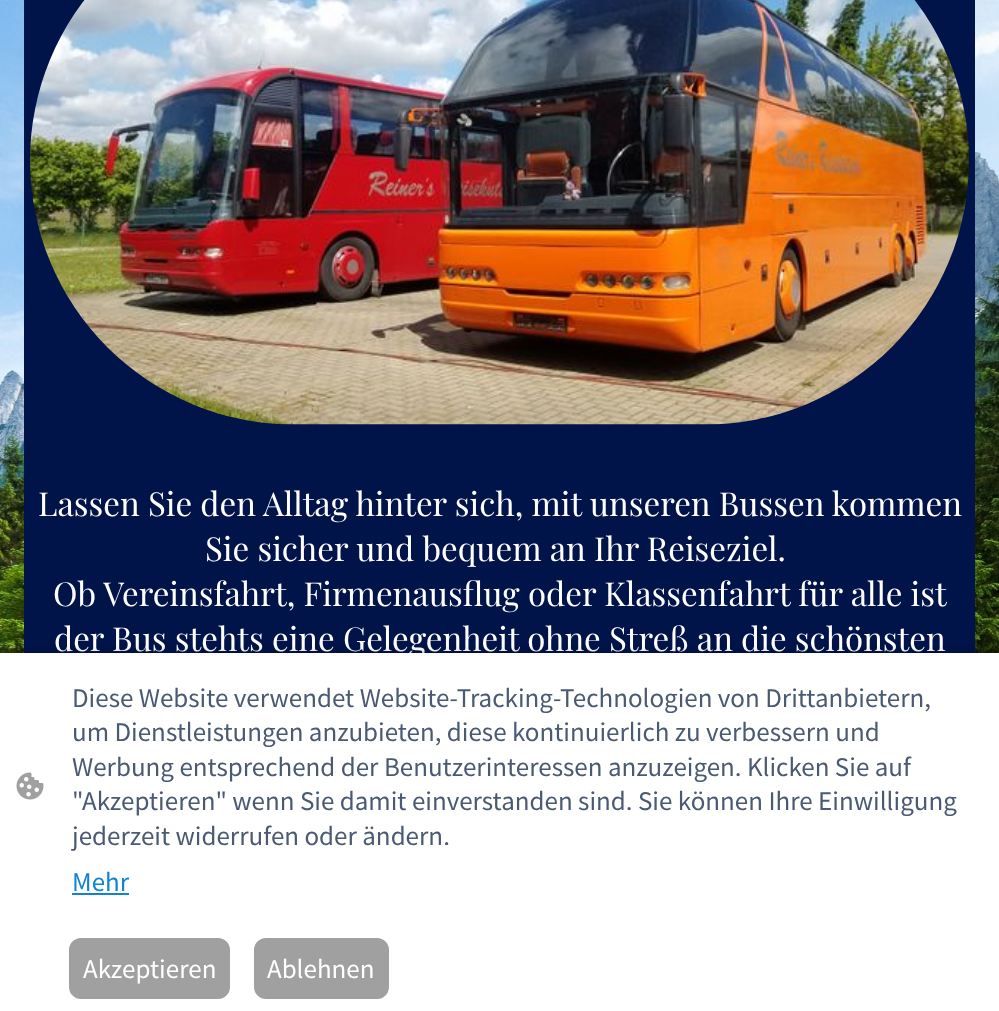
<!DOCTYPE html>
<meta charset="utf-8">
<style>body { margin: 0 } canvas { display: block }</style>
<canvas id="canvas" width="999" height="1011"></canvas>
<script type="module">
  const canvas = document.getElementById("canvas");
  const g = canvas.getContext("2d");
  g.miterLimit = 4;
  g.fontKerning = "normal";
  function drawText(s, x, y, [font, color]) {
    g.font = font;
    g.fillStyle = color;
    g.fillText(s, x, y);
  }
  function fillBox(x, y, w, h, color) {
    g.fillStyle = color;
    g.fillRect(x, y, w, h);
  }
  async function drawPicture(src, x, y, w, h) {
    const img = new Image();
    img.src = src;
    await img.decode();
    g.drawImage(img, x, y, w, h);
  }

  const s1 = ["33px Playfair Display", "#FFFFFF"];
  const s2 = ["27px Source Sans Pro", "#4A5A73"];
  const s3 = ["27px Source Sans Pro", "#1183D1"];
  const s4 = ["27px Source Sans Pro", "#FFFFFF"];

  fillBox(0, 0, 999, 1011, "#FFFFFF");
  await drawPicture("pic1.png", 0, 0, 999, 653);
  fillBox(24, 0, 951, 653, "#00144A");
  await drawPicture("pic2.png", 30, 0, 939, 425);
  drawText("Lassen Sie den Alltag hinter sich, mit unseren Bussen kommen", 38, 516, s1);
  drawText("Sie sicher und bequem an Ihr Reiseziel.", 205, 561, s1);
  drawText("Ob Vereinsfahrt, Firmenausflug oder Klassenfahrt für alle ist", 53, 606, s1);
  drawText("der Bus stehts eine Gelegenheit ohne Streß an die schönsten", 54, 651, s1);
  g.fillStyle = "rgba(0, 0, 0, 0.63)";
  g.filter = "blur(6px)";
  g.beginPath();
  g.rect(9, 657, 981, 341);
  g.fill();
  g.filter = "none";
  fillBox(0, 653, 999, 358, "#FFFFFF");
  await drawPicture("pic3.png", 16, 772, 28, 28);
  drawText("Diese Website verwendet Website-Tracking-Technologien von Drittanbietern,", 72, 707, s2);
  drawText("um Dienstleistungen anzubieten, diese kontinuierlich zu verbessern und", 72, 741, s2);
  drawText("Werbung entsprechend der Benutzerinteressen anzuzeigen. Klicken Sie auf", 72, 776, s2);
  drawText("\"Akzeptieren\" wenn Sie damit einverstanden sind. Sie können Ihre Einwilligung", 72, 810, s2);
  drawText("jederzeit widerrufen oder ändern.", 72, 845, s2);
  drawText("Mehr", 72, 891, s3);
  fillBox(72, 893, 57, 2, "#1183D1");
  g.fillStyle = "#A0A0A0";
  g.beginPath();
  g.roundRect(70, 939, 159, 59, 11);
  g.fill();
  g.strokeStyle = "#A0A0A0";
  g.lineWidth = 2;
  g.stroke();
  drawText("Akzeptieren", 83, 978, s4);
  g.fillStyle = "#A0A0A0";
  g.beginPath();
  g.roundRect(255, 939, 133, 59, 11);
  g.fill();
  g.stroke();
  drawText("Ablehnen", 267, 978, s4);
</script>
